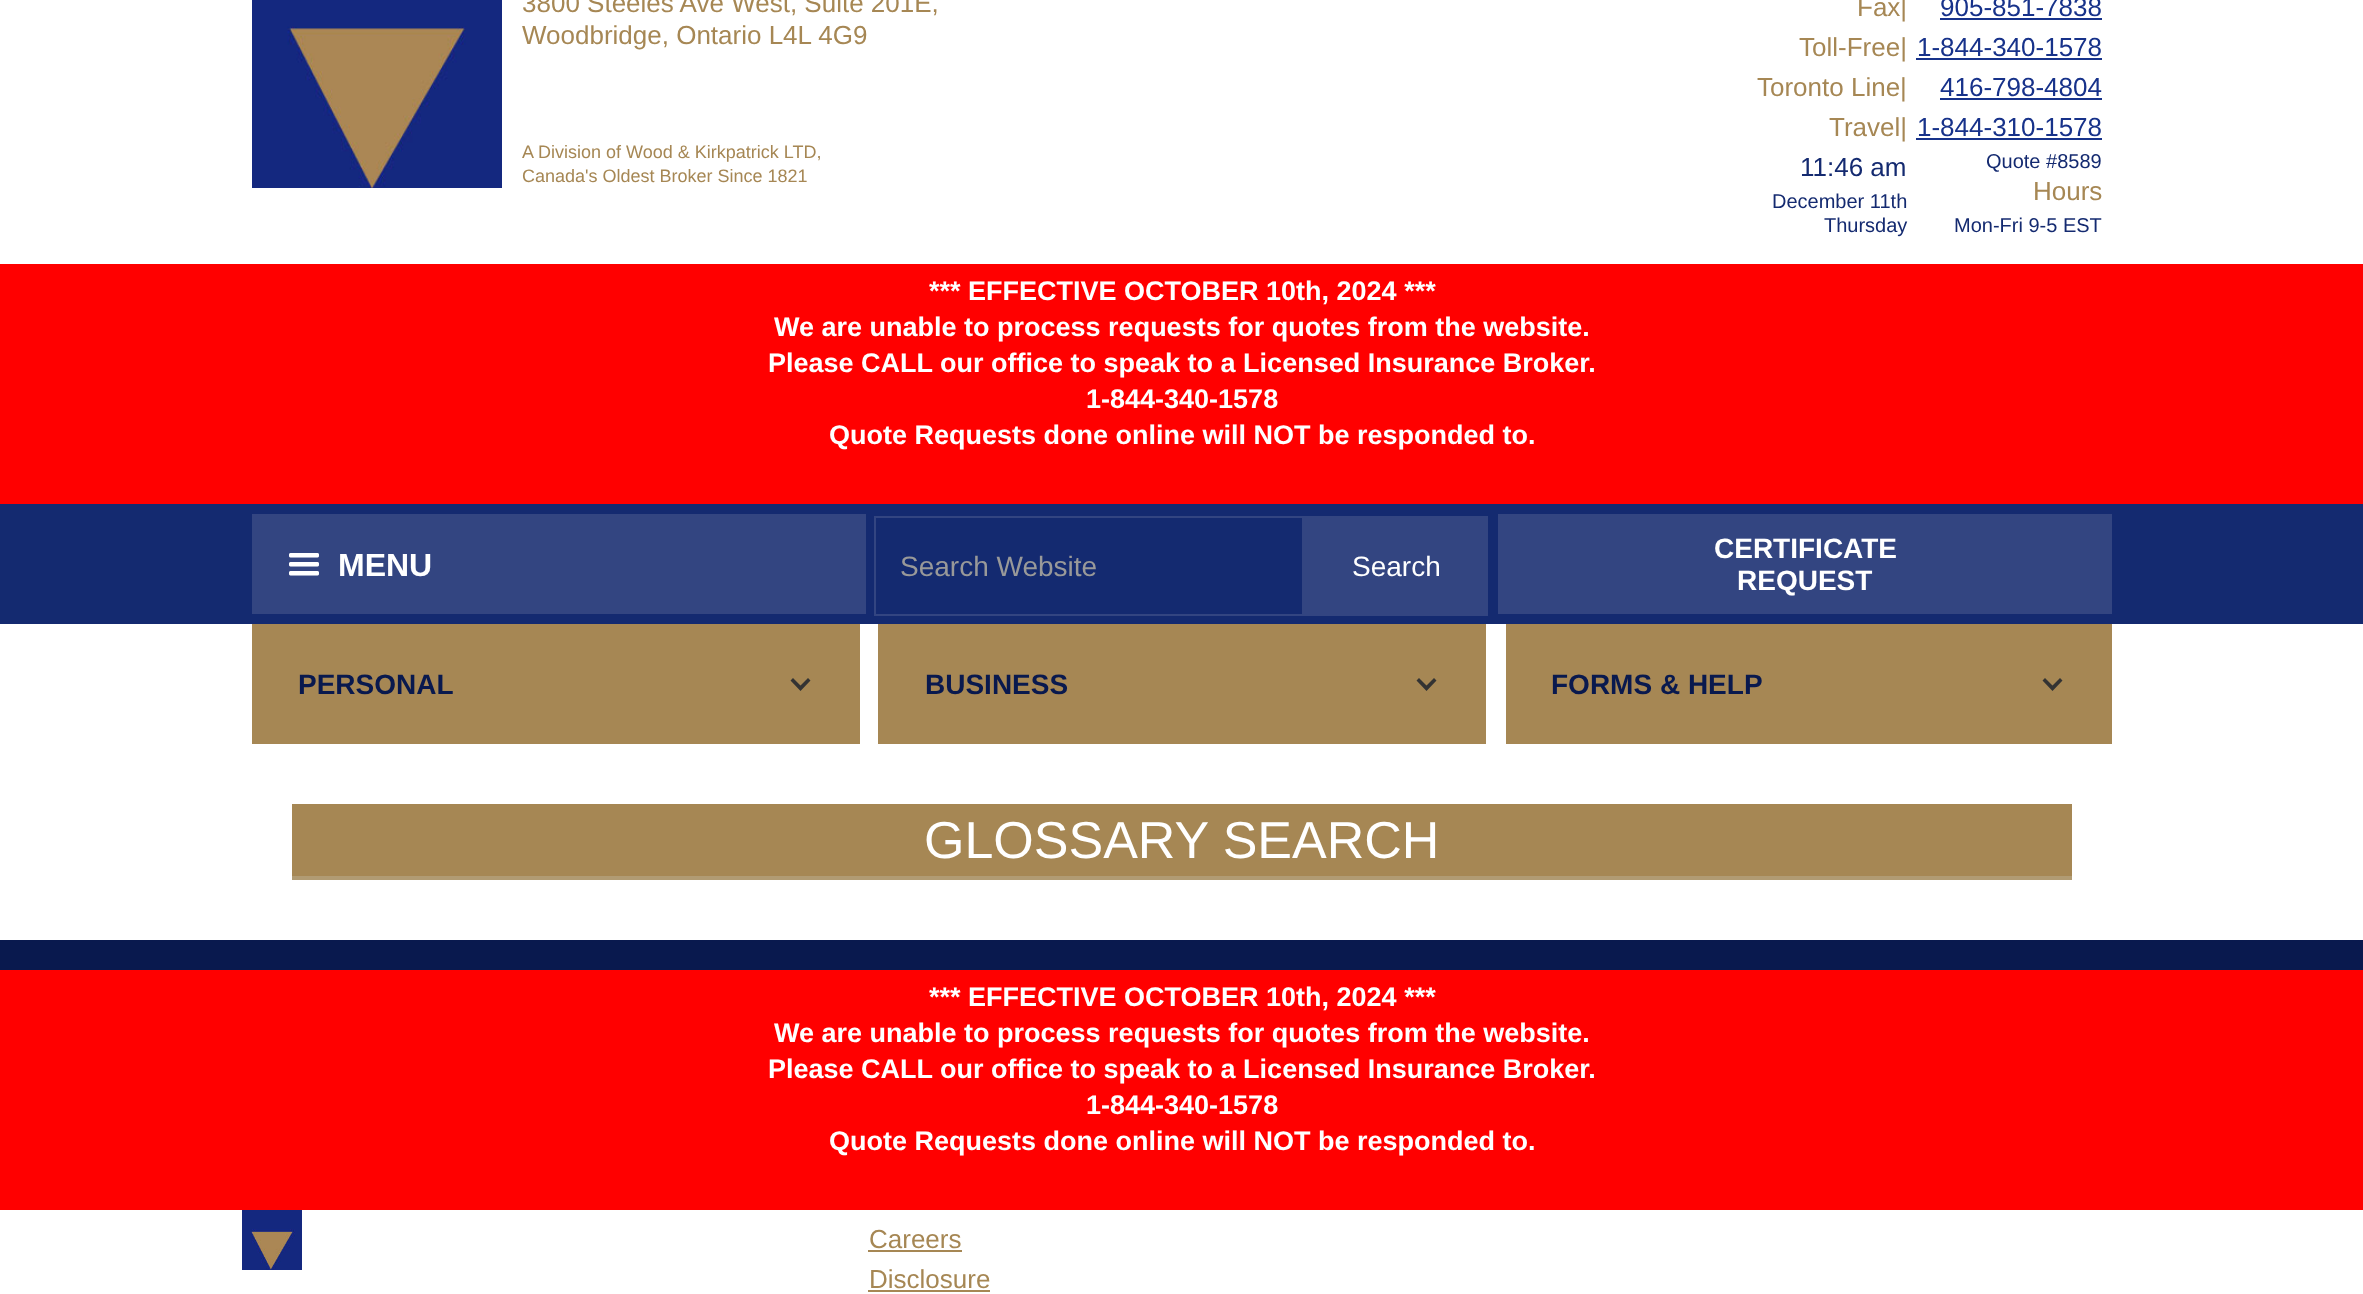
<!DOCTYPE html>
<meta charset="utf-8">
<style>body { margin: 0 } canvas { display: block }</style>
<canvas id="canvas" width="2363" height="1294"></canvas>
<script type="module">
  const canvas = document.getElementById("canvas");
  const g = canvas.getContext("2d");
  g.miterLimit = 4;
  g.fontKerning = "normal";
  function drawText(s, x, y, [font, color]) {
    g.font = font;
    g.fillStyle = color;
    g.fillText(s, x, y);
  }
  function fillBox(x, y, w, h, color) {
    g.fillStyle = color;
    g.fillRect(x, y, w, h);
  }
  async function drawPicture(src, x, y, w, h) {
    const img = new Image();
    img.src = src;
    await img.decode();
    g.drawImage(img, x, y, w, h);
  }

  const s1 = ["26px Liberation Sans", "#A68754"];
  const s2 = ["18px Liberation Sans", "#A68754"];
  const s3 = ["26px Liberation Sans", "#17328A"];
  const s4 = ["26px Liberation Sans", "#142A70"];
  const s5 = ["20px Liberation Sans", "#142A70"];
  const s6 = ["bold 27px Liberation Sans", "#FFFFFF"];
  const s7 = ["bold 32px Liberation Sans", "#FFFFFF"];
  const s8 = ["28px Liberation Sans", "#999999"];
  const s9 = ["28px Liberation Sans", "#FFFFFF"];
  const s10 = ["bold 28px Liberation Sans", "#FFFFFF"];
  const s11 = ["bold 28px Liberation Sans", "#09194E"];
  const s12 = ["52px Liberation Sans", "#FFFFFF"];

  fillBox(0, 0, 2363, 1294, "#FFFFFF");
  await drawPicture("pic1.png", 252, 0, 250, 188);
  drawText("3800 Steeles Ave West, Suite 201E,", 522, 12, s1);
  drawText("Woodbridge, Ontario L4L 4G9", 522, 44, s1);
  drawText("A Division of Wood & Kirkpatrick LTD,", 522, 158, s2);
  drawText("Canada's Oldest Broker Since 1821", 522, 182, s2);
  drawText("Fax|", 1857, 16, s1);
  drawText("Toll-Free|", 1799, 56, s1);
  drawText("905-851-7838", 1940, 16, s3);
  fillBox(1940, 18, 162, 2, "#17328A");
  drawText("1-844-340-1578", 1917, 56, s3);
  fillBox(1916, 58, 186, 2, "#17328A");
  drawText("Toronto Line|", 1757, 96, s1);
  drawText("Travel|", 1829, 136, s1);
  drawText("11:46 am", 1800, 176, s4);
  drawText("December 11th", 1772, 208, s5);
  drawText("Thursday", 1824, 232, s5);
  drawText("416-798-4804", 1940, 96, s3);
  fillBox(1940, 98, 162, 2, "#17328A");
  drawText("1-844-310-1578", 1917, 136, s3);
  fillBox(1916, 138, 186, 2, "#17328A");
  drawText("Quote #8589", 1986, 168, s5);
  drawText("Hours", 2033, 200, s1);
  drawText("Mon-Fri 9-5 EST", 1954, 232, s5);
  fillBox(0, 264, 2363, 240, "#FF0000");
  drawText("*** EFFECTIVE OCTOBER 10th, 2024 ***", 929, 300, s6);
  drawText("We are unable to process requests for quotes from the website.", 774, 336, s6);
  drawText("Please CALL our office to speak to a Licensed Insurance Broker.", 768, 372, s6);
  drawText("1-844-340-1578", 1086, 408, s6);
  drawText("Quote Requests done online will NOT be responded to.", 829, 444, s6);
  fillBox(0, 504, 2363, 120, "#142A70");
  fillBox(252, 514, 614, 100, "#334581");
  await drawPicture("pic2.png", 289, 553, 30, 23);
  drawText("MENU", 338, 576, s7);
  g.strokeStyle = "#334581";
  g.lineWidth = 2;
  g.strokeRect(875, 517, 428, 98);
  drawText("Search Website", 900, 576, s8);
  fillBox(1304, 516, 184, 100, "#334581");
  drawText("Search", 1352, 576, s9);
  fillBox(1498, 514, 614, 100, "#334581");
  drawText("CERTIFICATE", 1714, 558, s10);
  drawText("REQUEST", 1737, 590, s10);
  fillBox(252, 624, 608, 120, "#A68754");
  drawText("PERSONAL", 298, 694, s11);
  g.fillStyle = "#333333";
  g.beginPath();
  g.moveTo(808, 678);
  g.lineTo(800.5, 685.5);
  g.lineTo(793, 678);
  g.lineTo(790.5, 680.5);
  g.lineTo(800.5, 691);
  g.lineTo(810.5, 680.5);
  g.closePath();
  g.fill();
  fillBox(878, 624, 608, 120, "#A68754");
  drawText("BUSINESS", 925, 694, s11);
  g.fillStyle = "#333333";
  g.beginPath();
  g.moveTo(1434, 678);
  g.lineTo(1426.5, 685.5);
  g.lineTo(1419, 678);
  g.lineTo(1416.5, 680.5);
  g.lineTo(1426.5, 691);
  g.lineTo(1436.5, 680.5);
  g.closePath();
  g.fill();
  fillBox(1506, 624, 606, 120, "#A68754");
  drawText("FORMS & HELP", 1551, 694, s11);
  g.fillStyle = "#333333";
  g.beginPath();
  g.moveTo(2060, 678);
  g.lineTo(2052.5, 685.5);
  g.lineTo(2045, 678);
  g.lineTo(2042.5, 680.5);
  g.lineTo(2052.5, 691);
  g.lineTo(2062.5, 680.5);
  g.closePath();
  g.fill();
  fillBox(292, 804, 1780, 72, "#A68754");
  fillBox(292, 876, 1780, 4, "#B19B73");
  drawText("GLOSSARY SEARCH", 924, 858, s12);
  fillBox(0, 940, 2363, 30, "#09194E");
  fillBox(0, 970, 2363, 240, "#FF0000");
  drawText("*** EFFECTIVE OCTOBER 10th, 2024 ***", 929, 1006, s6);
  drawText("We are unable to process requests for quotes from the website.", 774, 1042, s6);
  drawText("Please CALL our office to speak to a Licensed Insurance Broker.", 768, 1078, s6);
  drawText("1-844-340-1578", 1086, 1114, s6);
  drawText("Quote Requests done online will NOT be responded to.", 829, 1150, s6);
  await drawPicture("pic3.png", 242, 1210, 60, 60);
  drawText("Careers", 869, 1248, s1);
  fillBox(868, 1250, 94, 2, "#A68754");
  drawText("Disclosure", 869, 1288, s1);
  fillBox(868, 1290, 122, 2, "#A68754");
</script>
